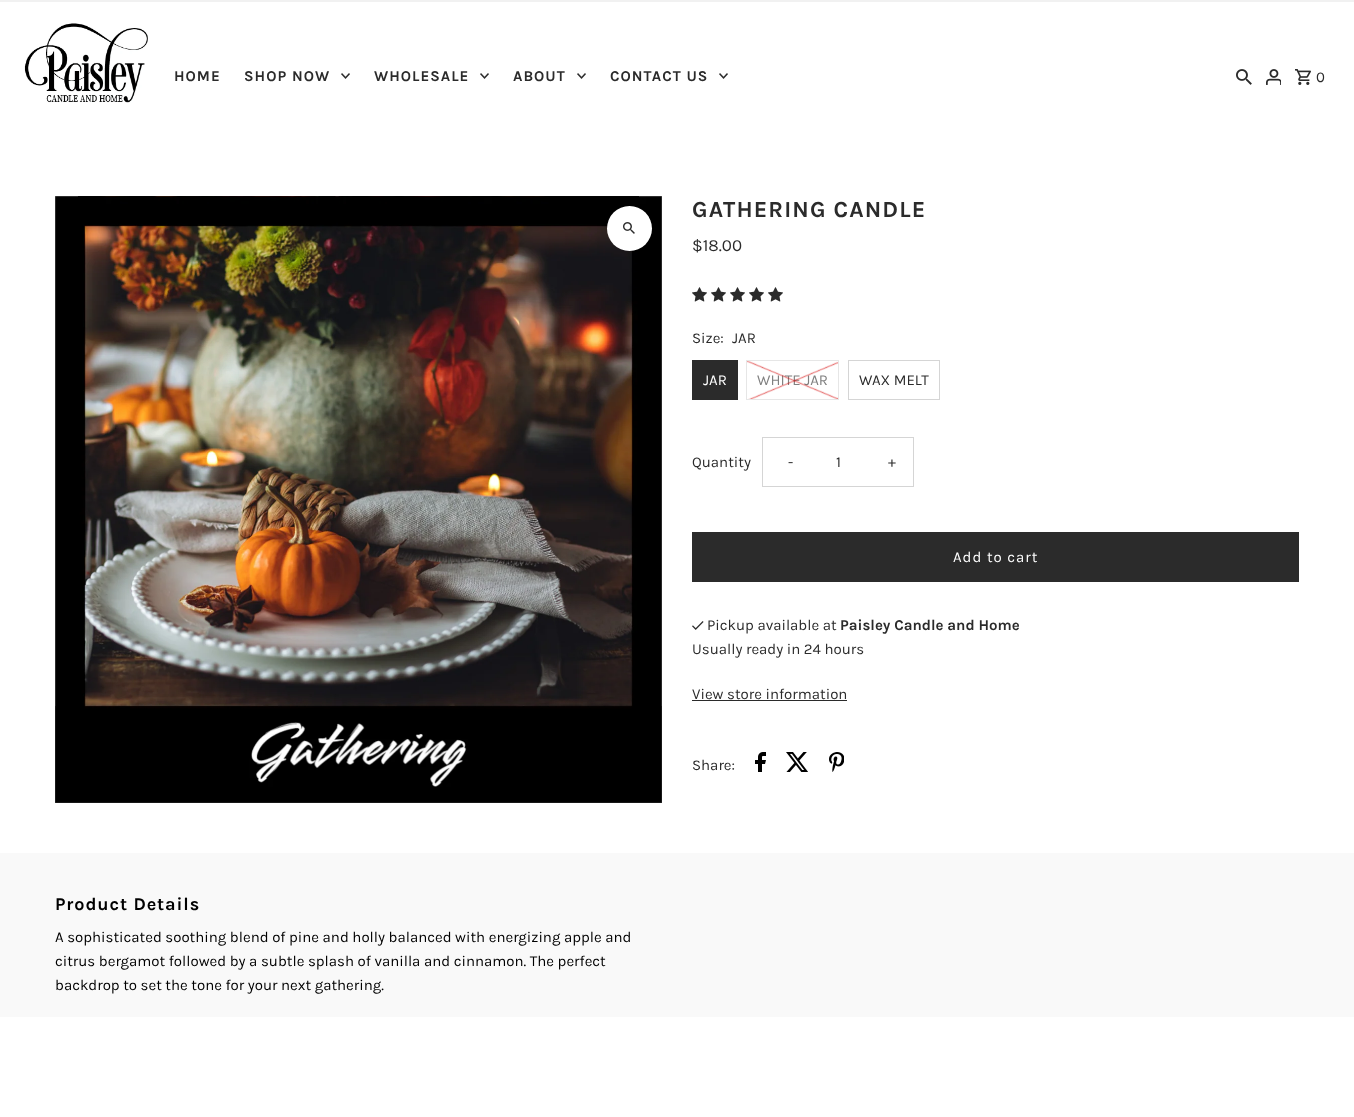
<!DOCTYPE html>
<meta charset="utf-8">
<style>body { margin: 0 } canvas { display: block }</style>
<canvas id="canvas" width="1354" height="1117"></canvas>
<script type="module">
  const canvas = document.getElementById("canvas");
  const g = canvas.getContext("2d");
  g.miterLimit = 4;
  g.fontKerning = "normal";
  function drawText(s, x, y, [font, color]) {
    g.font = font;
    g.fillStyle = color;
    g.fillText(s, x, y);
  }
  function fillBox(x, y, w, h, color) {
    g.fillStyle = color;
    g.fillRect(x, y, w, h);
  }
  async function drawPicture(src, x, y, w, h) {
    const img = new Image();
    img.src = src;
    await img.decode();
    g.drawImage(img, x, y, w, h);
  }

  const s1 = ["bold 15px Karla", "#2B2B2B"];
  const s2 = ["15px Karla", "#2B2B2B"];
  const s3 = ["bold 23px Karla", "#2B2B2B"];
  const s4 = ["17px Karla", "#2B2B2B"];
  const s5 = ["15px Karla", "#FFFFFF"];
  const s6 = ["15px Karla", "#808080"];
  const s7 = ["bold 18px Karla", "#000000"];
  const s8 = ["15px Karla", "#000000"];

  fillBox(0, 0, 1354, 1117, "#FFFFFF");
  fillBox(0, 0, 1354, 2, "#F1F1F1");
  await drawPicture("pic1.png", 24, 23, 124, 80);
  g.letterSpacing = "1px";
  drawText("HOME", 174, 81, s1);
  drawText("SHOP NOW", 244, 81, s1);
  await drawPicture("pic2.png", 341, 73, 9, 6);
  drawText("WHOLESALE", 374, 81, s1);
  await drawPicture("pic2.png", 480, 73, 9, 6);
  drawText("ABOUT", 513, 81, s1);
  await drawPicture("pic2.png", 577, 73, 9, 6);
  drawText("CONTACT US", 610, 81, s1);
  await drawPicture("pic2.png", 719, 73, 9, 6);
  await drawPicture("pic3.png", 1236, 69, 16, 16);
  await drawPicture("pic4.png", 1266, 69, 15, 16);
  await drawPicture("pic5.png", 1295, 69, 16, 16);
  drawText("0", 1316, 82, s2);
  await drawPicture("pic6.png", 55, 196, 607, 607);
  g.fillStyle = "#FFFFFF";
  g.beginPath();
  g.arc(629.5, 228.5, 22.5, 0, Math.PI * 2);
  g.fill();
  await drawPicture("pic7.png", 623, 222, 12, 12);
  g.letterSpacing = "1.1px";
  drawText("GATHERING CANDLE", 692, 217, s3);
  g.letterSpacing = "0px";
  drawText("$18.00", 692, 251, s4);
  await drawPicture("pic8.png", 692, 287, 15, 15);
  await drawPicture("pic8.png", 711, 287, 15, 15);
  await drawPicture("pic8.png", 730, 287, 15, 15);
  await drawPicture("pic8.png", 749, 287, 15, 15);
  await drawPicture("pic8.png", 768, 287, 15, 15);
  drawText("Size:", 692, 343, s2);
  drawText("JAR", 732, 343, s2);
  fillBox(692, 360, 46, 40, "#2B2B2B");
  drawText("JAR", 703, 385, s5);
  g.strokeStyle = "#E6E6E6";
  g.strokeRect(746.5, 360.5, 92, 39);
  drawText("WHITE JAR", 757, 385, s6);
  await drawPicture("pic9.png", 747, 361, 91, 38);
  g.strokeStyle = "#D5D5D5";
  g.strokeRect(848.5, 360.5, 91, 39);
  drawText("WAX MELT", 859, 385, s2);
  drawText("Quantity", 692, 467, s2);
  g.strokeRect(762.5, 437.5, 151, 49);
  g.letterSpacing = "1px";
  drawText("-", 788, 467, s2);
  g.letterSpacing = "0px";
  drawText("1", 836, 467, s2);
  g.letterSpacing = "1px";
  drawText("+", 888, 467, s2);
  fillBox(692, 532, 607, 50, "#2B2B2B");
  drawText("Add to cart", 953, 562, s5);
  await drawPicture("pic10.png", 692, 621, 12, 9);
  g.letterSpacing = "0px";
  drawText("Pickup available at", 707, 630, s2);
  drawText("Paisley Candle and Home", 840, 630, s1);
  drawText("Usually ready in 24 hours", 692, 654, s2);
  drawText("View store information", 692, 699, s2);
  fillBox(692, 700, 155, 1, "#2B2B2B");
  drawText("Share:", 692, 770, s2);
  await drawPicture("pic11.png", 755, 752, 11, 20);
  await drawPicture("pic12.png", 786, 752, 22, 20);
  await drawPicture("pic13.png", 829, 752, 15, 20);
  fillBox(0, 853, 1354, 164, "#F9F9F9");
  g.letterSpacing = "0.9px";
  drawText("Product Details", 55, 910, s7);
  g.letterSpacing = "0px";
  drawText("A sophisticated soothing blend of pine and holly balanced with energizing apple and", 55, 942, s8);
  drawText("citrus bergamot followed by a subtle splash of vanilla and cinnamon. The perfect", 55, 966, s8);
  drawText("backdrop to set the tone for your next gathering.", 55, 990, s8);
</script>
